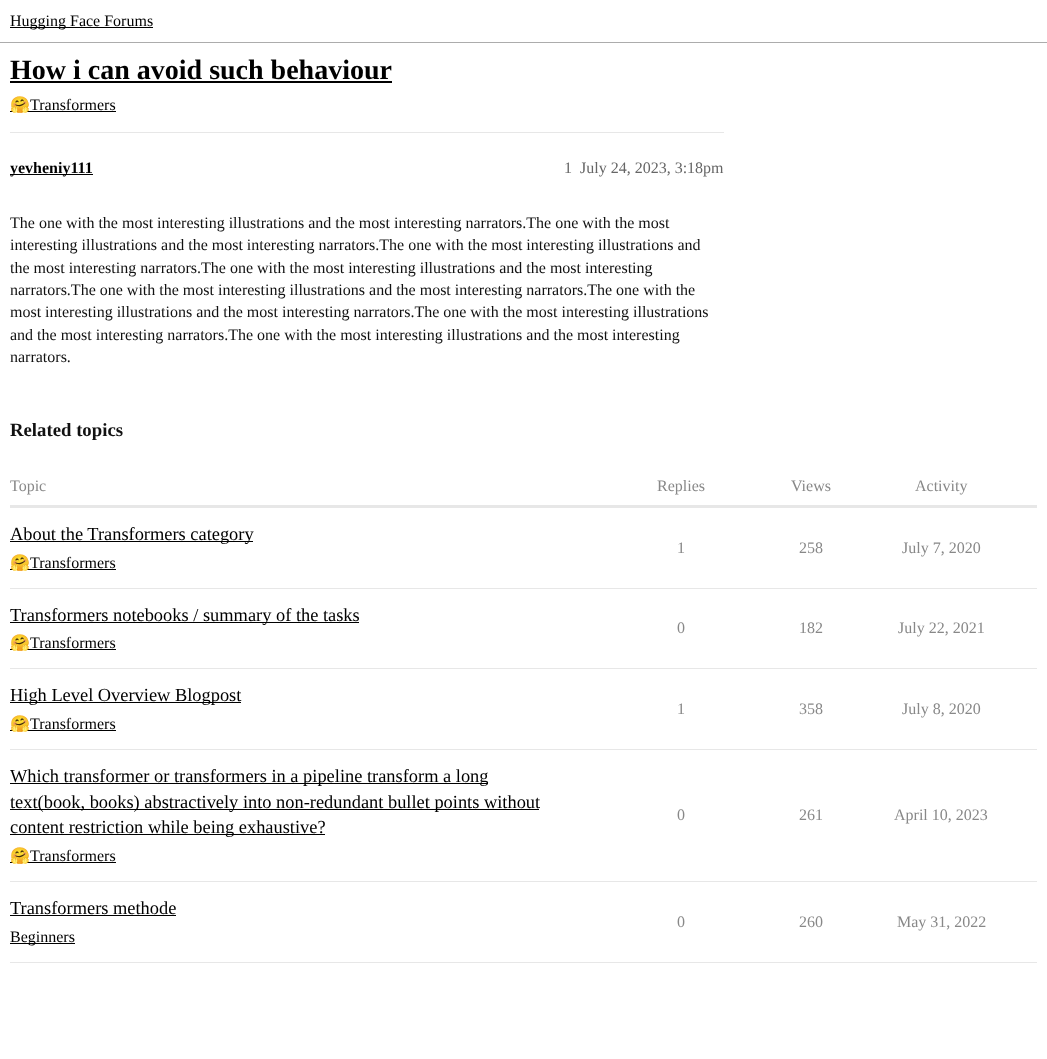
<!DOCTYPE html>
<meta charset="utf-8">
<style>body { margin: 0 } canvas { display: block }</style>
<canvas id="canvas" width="1047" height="1059"></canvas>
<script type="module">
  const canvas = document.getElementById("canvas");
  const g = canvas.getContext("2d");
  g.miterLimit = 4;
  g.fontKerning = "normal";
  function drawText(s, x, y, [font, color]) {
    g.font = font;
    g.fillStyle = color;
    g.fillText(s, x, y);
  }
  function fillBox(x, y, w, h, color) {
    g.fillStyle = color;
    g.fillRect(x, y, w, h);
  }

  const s1 = ["16px Liberation Serif", "#000000"];
  const s2 = ["bold 28px Liberation Serif", "#000000"];
  const s3 = ["16px Noto Color Emoji", "#000000"];
  const s4 = ["bold 16px Liberation Serif", "#000000"];
  const s5 = ["16px Liberation Serif", "#666666"];
  const s6 = ["16px Liberation Serif", "#111111"];
  const s7 = ["bold 18.75px Liberation Serif", "#111111"];
  const s8 = ["16px Liberation Serif", "#888888"];
  const s9 = ["18.4px Liberation Serif", "#000000"];

  fillBox(0, 0, 1047, 1059, "#FFFFFF");
  fillBox(0, 42, 1047, 1, "#ACACAC");
  fillBox(10, 27, 143, 1, "#000000");
  drawText("Hugging Face Forums", 10, 26, s1);
  drawText("How i can avoid such behaviour", 10, 79, s2);
  fillBox(10, 81, 382, 2, "#000000");
  fillBox(10, 111, 106, 1, "#000000");
  drawText("🤗", 10, 110, s3);
  drawText("Transformers", 30, 110, s1);
  fillBox(10, 132, 714, 1, "#E7E7E7");
  fillBox(10, 174, 83, 1, "#000000");
  drawText("yevheniy111", 10, 173, s4);
  drawText("1", 564, 173, s5);
  drawText("July 24, 2023, 3:18pm", 580, 173, s5);
  drawText("The one with the most interesting illustrations and the most interesting narrators.The one with the most", 10, 228, s6);
  drawText("interesting illustrations and the most interesting narrators.The one with the most interesting illustrations and", 10, 250, s6);
  drawText("the most interesting narrators.The one with the most interesting illustrations and the most interesting", 10, 273, s6);
  drawText("narrators.The one with the most interesting illustrations and the most interesting narrators.The one with the", 10, 295, s6);
  drawText("most interesting illustrations and the most interesting narrators.The one with the most interesting illustrations", 10, 317, s6);
  drawText("and the most interesting narrators.The one with the most interesting illustrations and the most interesting", 10, 340, s6);
  drawText("narrators.", 10, 362, s6);
  drawText("Related topics", 10, 436, s7);
  drawText("Topic", 10, 491, s8);
  drawText("Replies", 657, 491, s8);
  drawText("Views", 791, 491, s8);
  drawText("Activity", 915, 491, s8);
  fillBox(10, 505, 1027, 3, "#E7E7E7");
  fillBox(10, 588, 1027, 1, "#E7E7E7");
  fillBox(10, 541, 243, 1, "#000000");
  drawText("About the Transformers category", 10, 540, s9);
  fillBox(10, 569, 106, 1, "#000000");
  drawText("🤗", 10, 568, s3);
  drawText("Transformers", 30, 568, s1);
  drawText("1", 677, 553, s8);
  drawText("258", 799, 553, s8);
  drawText("July 7, 2020", 902, 553, s8);
  fillBox(10, 668, 1027, 1, "#E7E7E7");
  fillBox(10, 622, 349, 1, "#000000");
  drawText("Transformers notebooks / summary of the tasks", 10, 621, s9);
  fillBox(10, 649, 106, 1, "#000000");
  drawText("🤗", 10, 648, s3);
  drawText("Transformers", 30, 648, s1);
  drawText("0", 677, 633, s8);
  drawText("182", 799, 633, s8);
  drawText("July 22, 2021", 898, 633, s8);
  fillBox(10, 749, 1027, 1, "#E7E7E7");
  fillBox(10, 702, 231, 1, "#000000");
  drawText("High Level Overview Blogpost", 10, 701, s9);
  fillBox(10, 730, 106, 1, "#000000");
  drawText("🤗", 10, 729, s3);
  drawText("Transformers", 30, 729, s1);
  drawText("1", 677, 714, s8);
  drawText("358", 799, 714, s8);
  drawText("July 8, 2020", 902, 714, s8);
  fillBox(10, 881, 1027, 1, "#E7E7E7");
  fillBox(10, 783, 478, 1, "#000000");
  drawText("Which transformer or transformers in a pipeline transform a long", 10, 782, s9);
  fillBox(10, 809, 529, 1, "#000000");
  drawText("text(book, books) abstractively into non-redundant bullet points without", 10, 808, s9);
  fillBox(10, 834, 315, 1, "#000000");
  drawText("content restriction while being exhaustive?", 10, 833, s9);
  fillBox(10, 862, 106, 1, "#000000");
  drawText("🤗", 10, 861, s3);
  drawText("Transformers", 30, 861, s1);
  drawText("0", 677, 820, s8);
  drawText("261", 799, 820, s8);
  drawText("April 10, 2023", 894, 820, s8);
  fillBox(10, 962, 1027, 1, "#E7E7E7");
  drawText("Transformers methode", 10, 914, s9);
  fillBox(10, 915, 166, 1, "#000000");
  fillBox(10, 943, 65, 1, "#000000");
  drawText("Beginners", 10, 942, s1);
  drawText("0", 677, 927, s8);
  drawText("260", 799, 927, s8);
  drawText("May 31, 2022", 897, 927, s8);
</script>
